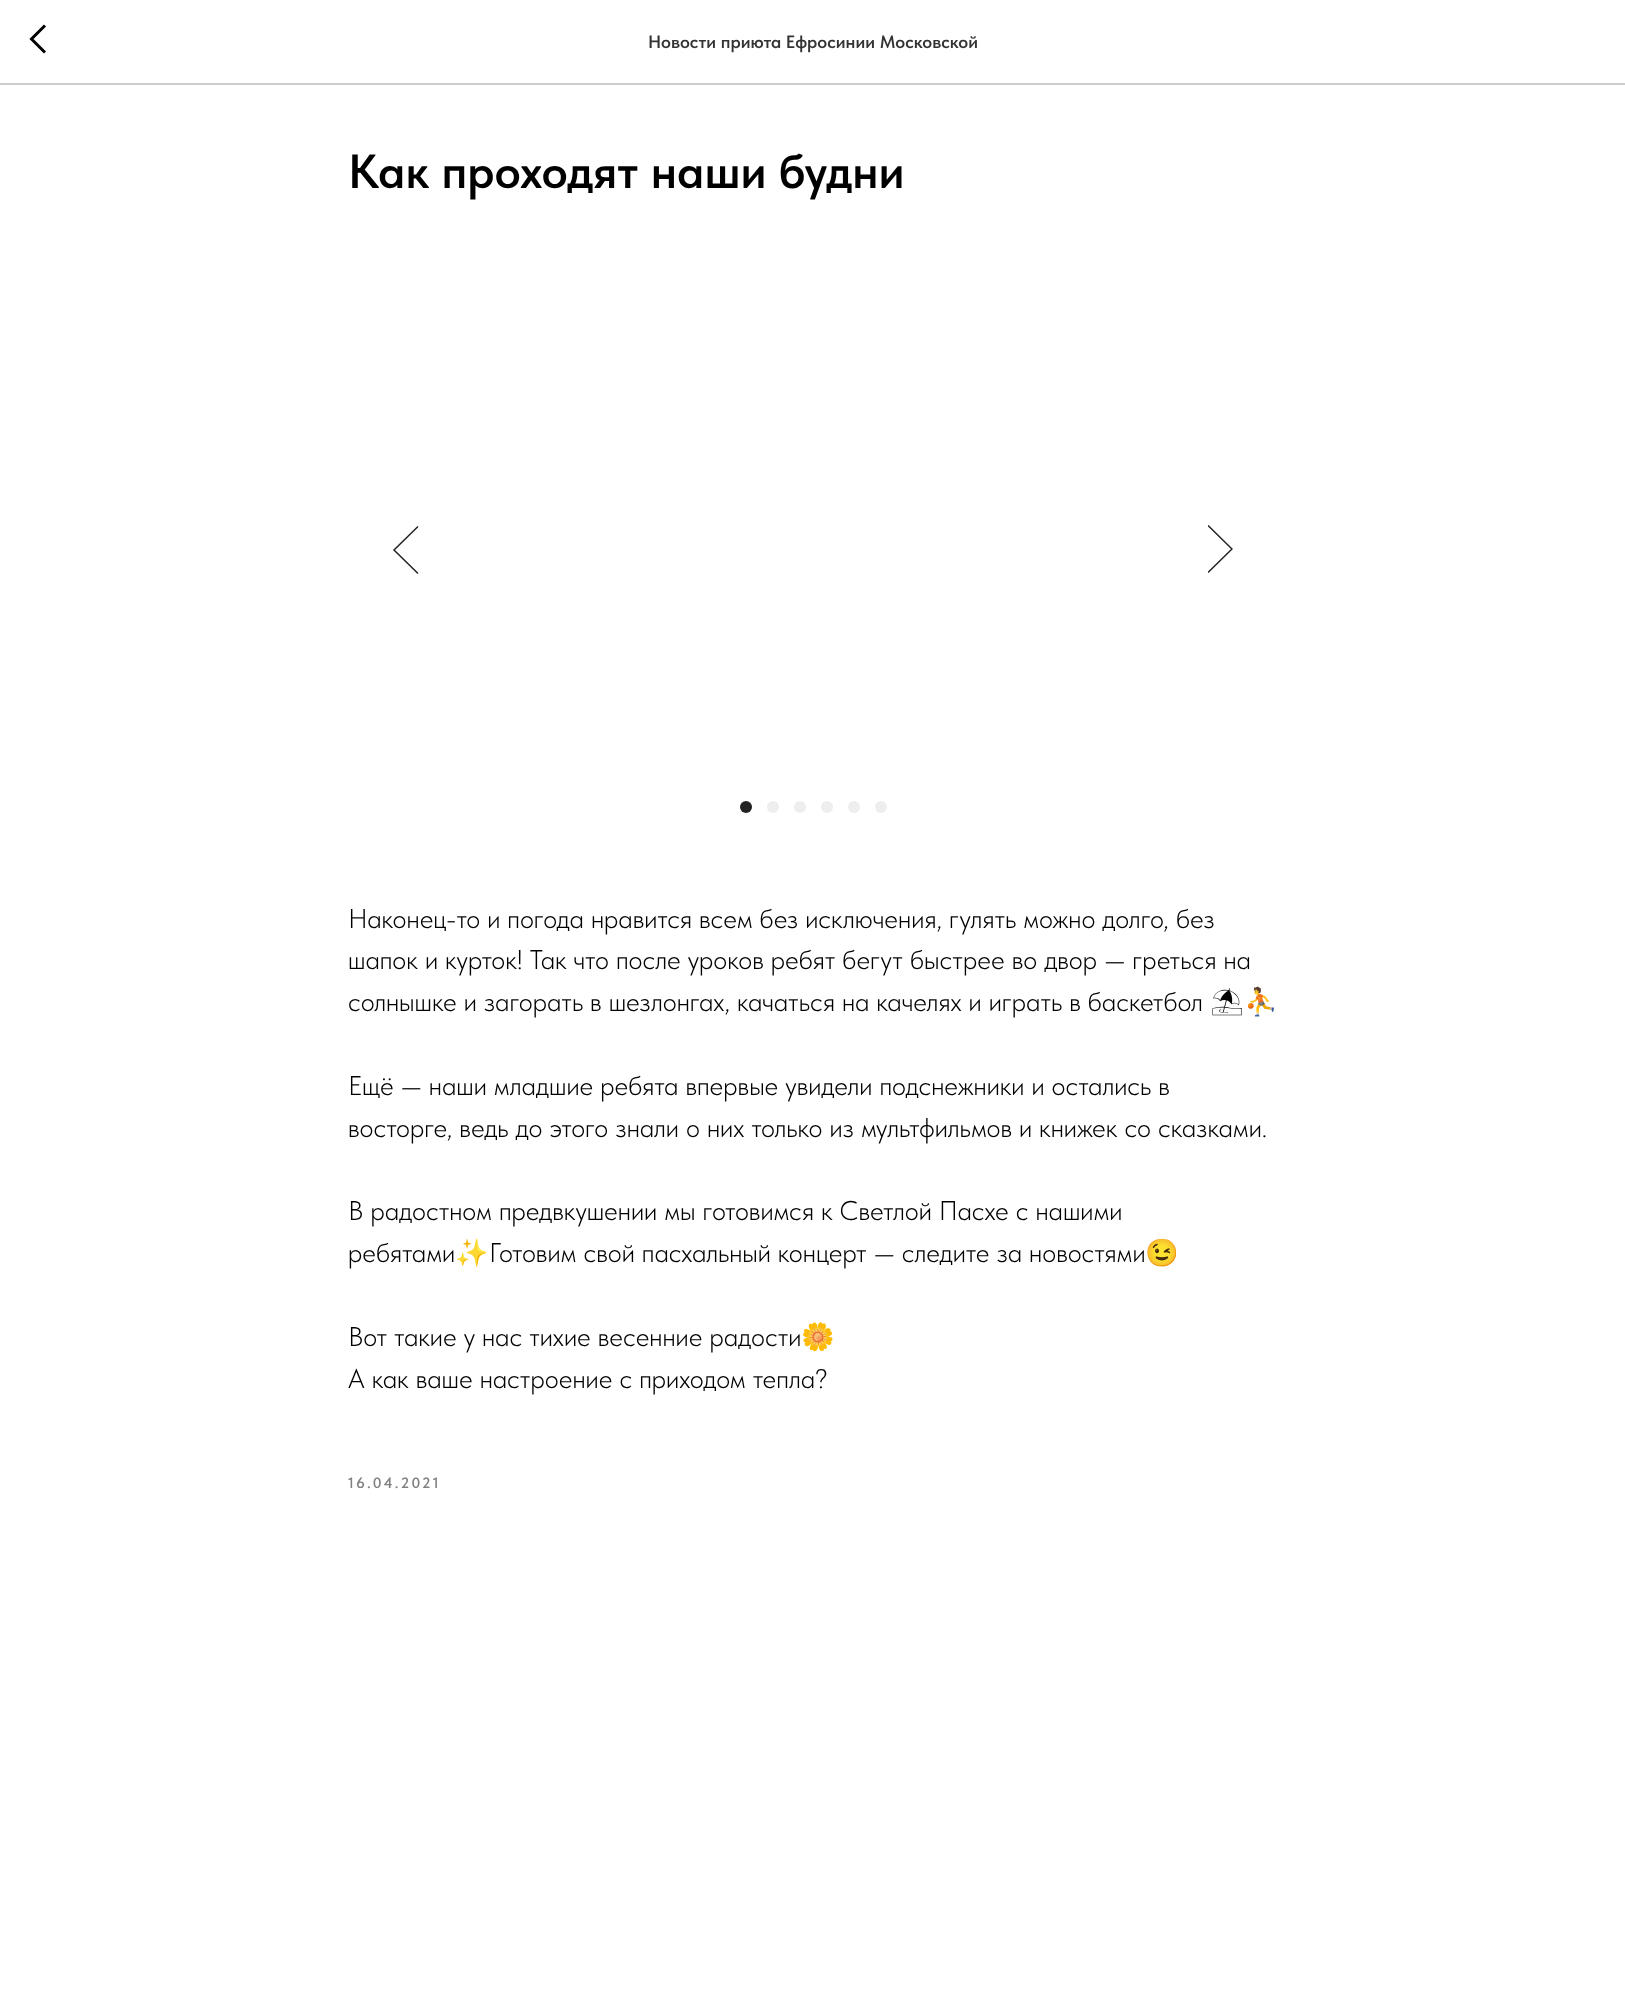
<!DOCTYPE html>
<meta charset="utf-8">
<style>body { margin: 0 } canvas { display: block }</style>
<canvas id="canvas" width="1625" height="2014"></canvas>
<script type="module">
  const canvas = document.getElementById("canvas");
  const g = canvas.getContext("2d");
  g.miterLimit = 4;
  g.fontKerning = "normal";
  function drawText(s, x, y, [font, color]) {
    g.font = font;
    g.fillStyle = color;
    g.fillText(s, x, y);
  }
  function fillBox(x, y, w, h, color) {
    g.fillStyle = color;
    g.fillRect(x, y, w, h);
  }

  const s1 = ["600 18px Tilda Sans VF", "#333333"];
  const s2 = ["600 48px Tilda Sans VF", "#000000"];
  const s3 = ["300 27px Tilda Sans VF", "#000000"];
  const s4 = ["300 27px Noto Emoji", "#000000"];
  const s5 = ["27px Noto Color Emoji", "#000000"];
  const s6 = ["600 15px Tilda Sans VF", "#808080"];

  fillBox(0, 0, 1625, 2014, "#FFFFFF");
  fillBox(0, 83, 1625, 2, "#CCCCCC");
  g.beginPath();
  g.moveTo(45, 52.5);
  g.lineTo(31.5, 39);
  g.lineTo(45, 25.5);
  g.strokeStyle = "#000000";
  g.lineWidth = 3;
  g.stroke();
  drawText("Новости приюта Ефросинии Московской", 648, 48, s1);
  drawText("Как проходят наши будни", 348, 188, s2);
  g.beginPath();
  g.moveTo(418, 573.5);
  g.lineTo(394, 550);
  g.lineTo(418, 526.5);
  g.strokeStyle = "#222222";
  g.lineWidth = 1.5;
  g.stroke();
  g.save();
  g.beginPath();
  g.rect(1208, 525, 25, 50);
  g.clip();
  g.beginPath();
  g.moveTo(1208, 525.5);
  g.lineTo(1232, 549);
  g.lineTo(1208, 572.5);
  g.stroke();
  g.restore();
  g.fillStyle = "#222222";
  g.beginPath();
  g.arc(746, 807, 6, 0, Math.PI * 2);
  g.fill();
  g.fillStyle = "#EEEEEE";
  g.beginPath();
  g.arc(773, 807, 6, 0, Math.PI * 2);
  g.fill();
  g.beginPath();
  g.arc(800, 807, 6, 0, Math.PI * 2);
  g.fill();
  g.beginPath();
  g.arc(827, 807, 6, 0, Math.PI * 2);
  g.fill();
  g.beginPath();
  g.arc(854, 807, 6, 0, Math.PI * 2);
  g.fill();
  g.beginPath();
  g.arc(881, 807, 6, 0, Math.PI * 2);
  g.fill();
  drawText("Наконец-то и погода нравится всем без исключения, гулять можно долго, без", 348, 928, s3);
  drawText("шапок и курток! Так что после уроков ребят бегут быстрее во двор — греться на", 348, 969, s3);
  drawText("солнышке и загорать в шезлонгах, качаться на качелях и играть в баскетбол", 348, 1011, s3);
  drawText("⛱", 1210, 1011, s4);
  drawText("⛹️", 1244, 1011, s5);
  drawText("Ещё — наши младшие ребята впервые увидели подснежники и остались в", 348, 1095, s3);
  drawText("восторге, ведь до этого знали о них только из мультфильмов и книжек со сказками.", 348, 1137, s3);
  drawText("В радостном предвкушении мы готовимся к Светлой Пасхе с нашими", 348, 1220, s3);
  drawText("ребятами", 348, 1262, s3);
  drawText("✨", 455, 1262, s5);
  drawText("Готовим свой пасхальный концерт — следите за новостями", 489, 1262, s3);
  drawText("😉", 1145, 1262, s5);
  drawText("Вот такие у нас тихие весенние радости", 348, 1346, s3);
  drawText("🌼", 801, 1346, s5);
  drawText("А как ваше настроение с приходом тепла?", 348, 1388, s3);
  g.letterSpacing = "2.25px";
  drawText("16.04.2021", 348, 1488, s6);
</script>
